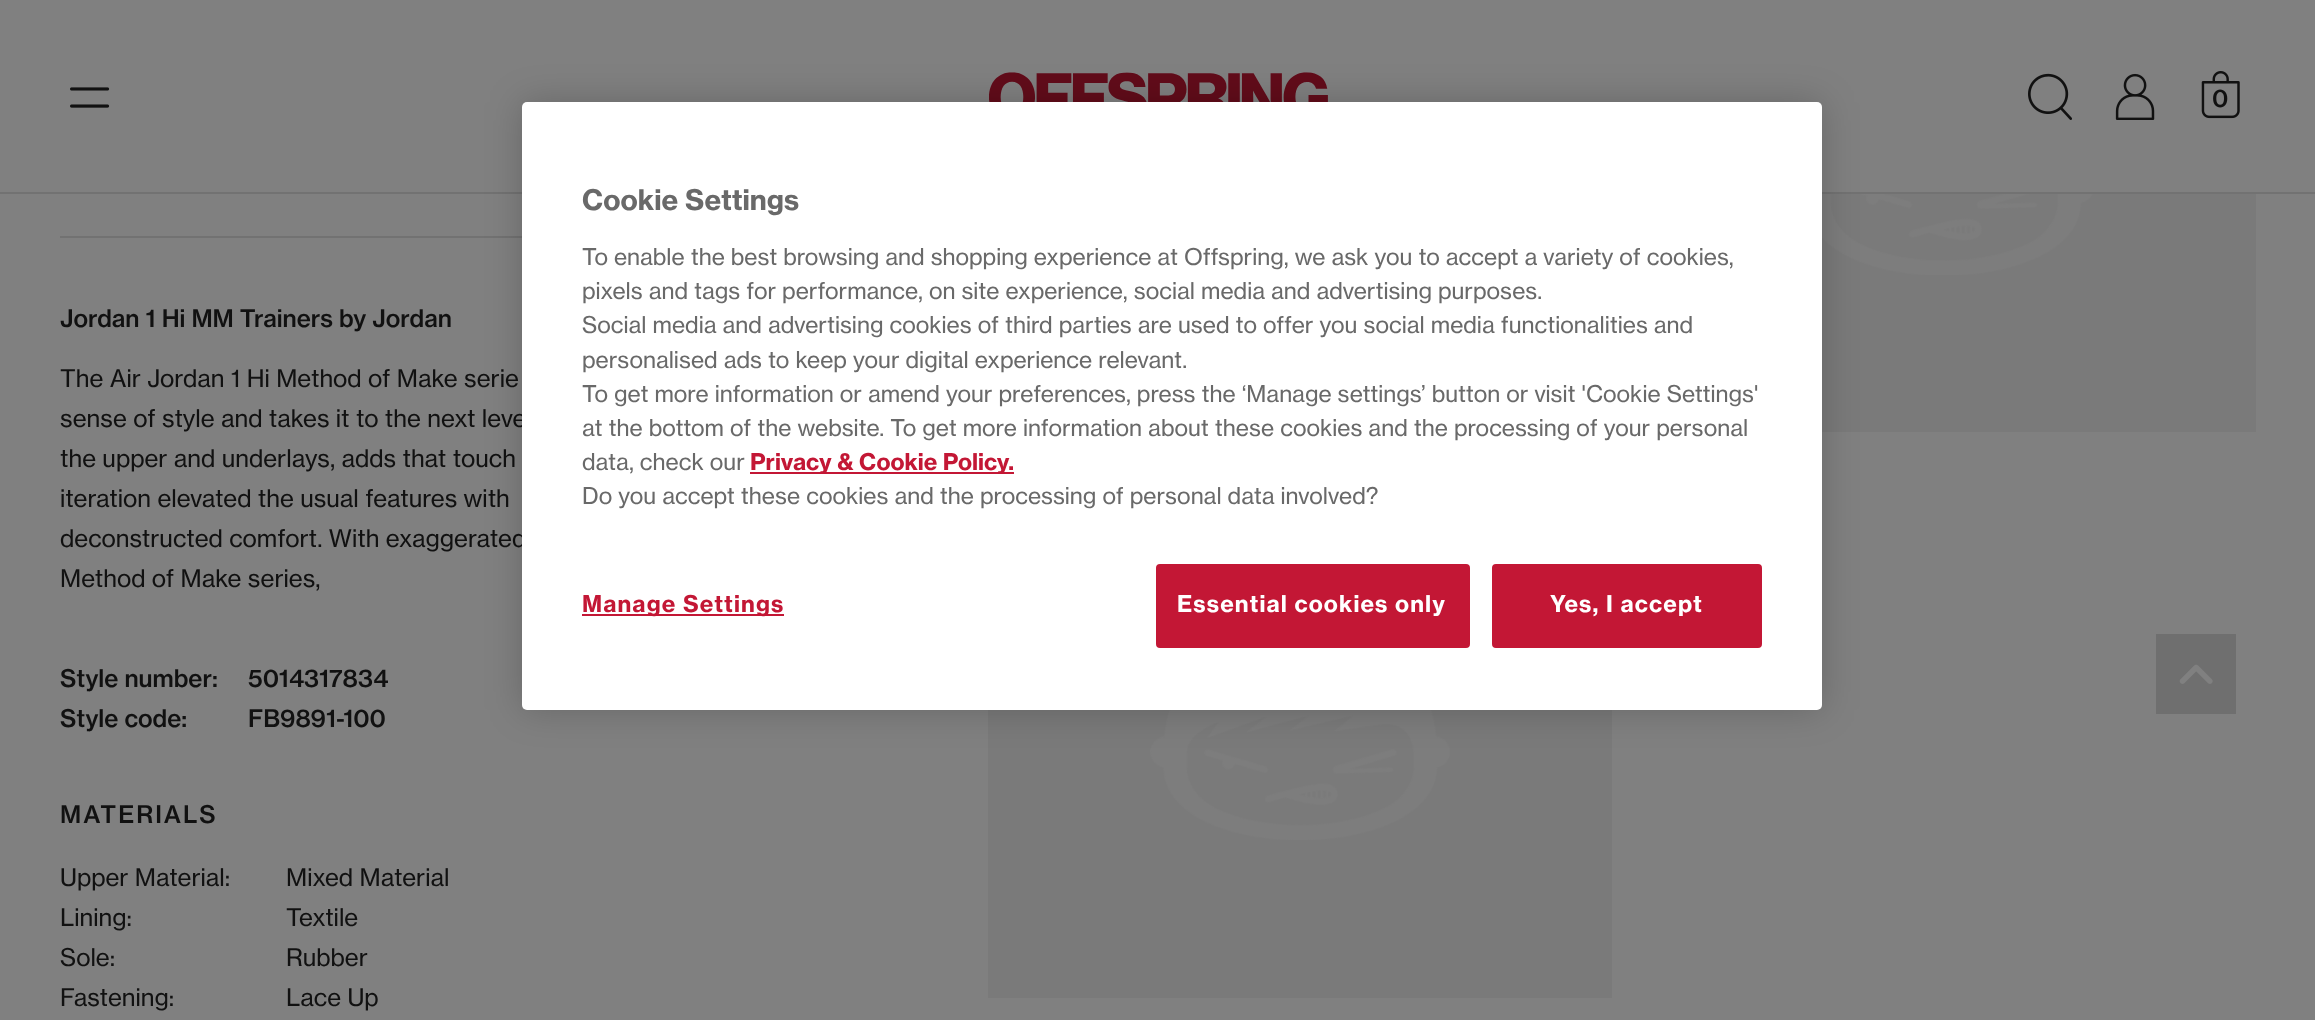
<!DOCTYPE html>
<meta charset="utf-8">
<style>body { margin: 0 } canvas { display: block }</style>
<canvas id="canvas" width="2315" height="1020"></canvas>
<script type="module">
  const canvas = document.getElementById("canvas");
  const g = canvas.getContext("2d");
  g.miterLimit = 4;
  g.fontKerning = "normal";
  function drawText(s, x, y, [font, color]) {
    g.font = font;
    g.fillStyle = color;
    g.fillText(s, x, y);
  }
  function fillBox(x, y, w, h, color) {
    g.fillStyle = color;
    g.fillRect(x, y, w, h);
  }
  function fillRounded(x, y, w, h, r, color) {
    g.fillStyle = color;
    g.beginPath();
    g.roundRect(x, y, w, h, r);
    g.fill();
  }
  async function drawPicture(src, x, y, w, h) {
    const img = new Image();
    img.src = src;
    await img.decode();
    g.drawImage(img, x, y, w, h);
  }

  const s1 = ["500 24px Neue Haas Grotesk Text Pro", "#111111"];
  const s2 = ["24px Neue Haas Grotesk Text Pro", "#111111"];
  const s3 = ["bold 28px Neue Haas Grotesk Text Pro", "#696969"];
  const s4 = ["22.75px Neue Haas Grotesk Text Pro", "#696969"];
  const s5 = ["bold 22.75px Neue Haas Grotesk Text Pro", "#C31735"];
  const s6 = ["bold 22.75px Neue Haas Grotesk Text Pro", "#FFFFFF"];

  fillBox(0, 0, 2315, 1020, "#808080");
  fillBox(0, 192, 2315, 2, "#727272");
  await drawPicture("pic1.png", 70, 87, 40, 21);
  await drawPicture("pic2.png", 989, 72, 339, 30);
  await drawPicture("pic3.png", 2028, 73, 44, 47);
  await drawPicture("pic4.png", 2115, 73, 40, 47);
  await drawPicture("pic5.png", 2201, 71, 39, 48);
  drawText("0", 2212, 107, s1);
  fillBox(60, 236, 462, 2, "#727272");
  drawText("Jordan 1 Hi MM Trainers by Jordan", 60, 327, s1);
  drawText("The Air Jordan 1 Hi Method of Make serie", 60, 387, s2);
  drawText("sense of style and takes it to the next leve", 60, 427, s2);
  drawText("the upper and underlays, adds that touch", 60, 467, s2);
  drawText("iteration elevated the usual features with", 60, 507, s2);
  drawText("deconstructed comfort. With exaggerated", 60, 547, s2);
  drawText("Method of Make series,", 60, 587, s2);
  drawText("Style number:", 60, 687, s1);
  drawText("5014317834", 248, 687, s1);
  drawText("Style code:", 60, 727, s1);
  drawText("FB9891-100", 248, 727, s1);
  g.letterSpacing = "2px";
  drawText("MATERIALS", 60, 823, s1);
  g.letterSpacing = "0px";
  drawText("Upper Material:", 60, 886, s2);
  drawText("Mixed Material", 286, 886, s2);
  drawText("Lining:", 60, 926, s2);
  drawText("Textile", 286, 926, s2);
  drawText("Sole:", 60, 966, s2);
  drawText("Rubber", 286, 966, s2);
  drawText("Fastening:", 60, 1006, s2);
  drawText("Lace Up", 286, 1006, s2);
  fillBox(1822, 194, 434, 238, "#7A7A7A");
  await drawPicture("pic6.png", 1822, 194, 271, 81);
  fillBox(988, 710, 624, 288, "#7A7A7A");
  await drawPicture("pic7.png", 1150, 710, 300, 130);
  g.fillStyle = "rgba(0, 0, 0, 0.2)";
  g.filter = "blur(18px)";
  g.beginPath();
  g.roundRect(522, 102, 1300, 608, 5);
  g.fill();
  g.filter = "none";
  fillRounded(522, 102, 1300, 608, 5, "#FFFFFF");
  drawText("Cookie Settings", 582, 210, s3);
  drawText("To enable the best browsing and shopping experience at Offspring, we ask you to accept a variety of cookies,", 582, 265, s4);
  drawText("pixels and tags for performance, on site experience, social media and advertising purposes.", 582, 299, s4);
  drawText("Social media and advertising cookies of third parties are used to offer you social media functionalities and", 582, 333, s4);
  drawText("personalised ads to keep your digital experience relevant.", 582, 368, s4);
  drawText("To get more information or amend your preferences, press the ‘Manage settings’ button or visit 'Cookie Settings'", 582, 402, s4);
  drawText("at the bottom of the website. To get more information about these cookies and the processing of your personal", 582, 436, s4);
  drawText("data, check our", 582, 470, s4);
  fillBox(750, 472, 264, 2, "#C31735");
  drawText("Privacy & Cookie Policy.", 750, 470, s5);
  drawText("Do you accept these cookies and the processing of personal data involved?", 582, 504, s4);
  fillBox(582, 614, 202, 2, "#C31735");
  g.letterSpacing = "1.1px";
  drawText("Manage Settings", 582, 612, s5);
  g.beginPath();
  g.roundRect(1157, 565, 312, 82, 3);
  g.fill();
  g.strokeStyle = "#C31735";
  g.lineWidth = 2;
  g.stroke();
  drawText("Essential cookies only", 1177, 612, s6);
  g.fillStyle = "#C31735";
  g.beginPath();
  g.roundRect(1493, 565, 268, 82, 3);
  g.fill();
  g.stroke();
  drawText("Yes, I accept", 1550, 612, s6);
  fillBox(2156, 634, 80, 80, "#6F6F6F");
  await drawPicture("pic8.png", 2179, 664, 34, 20);
</script>
